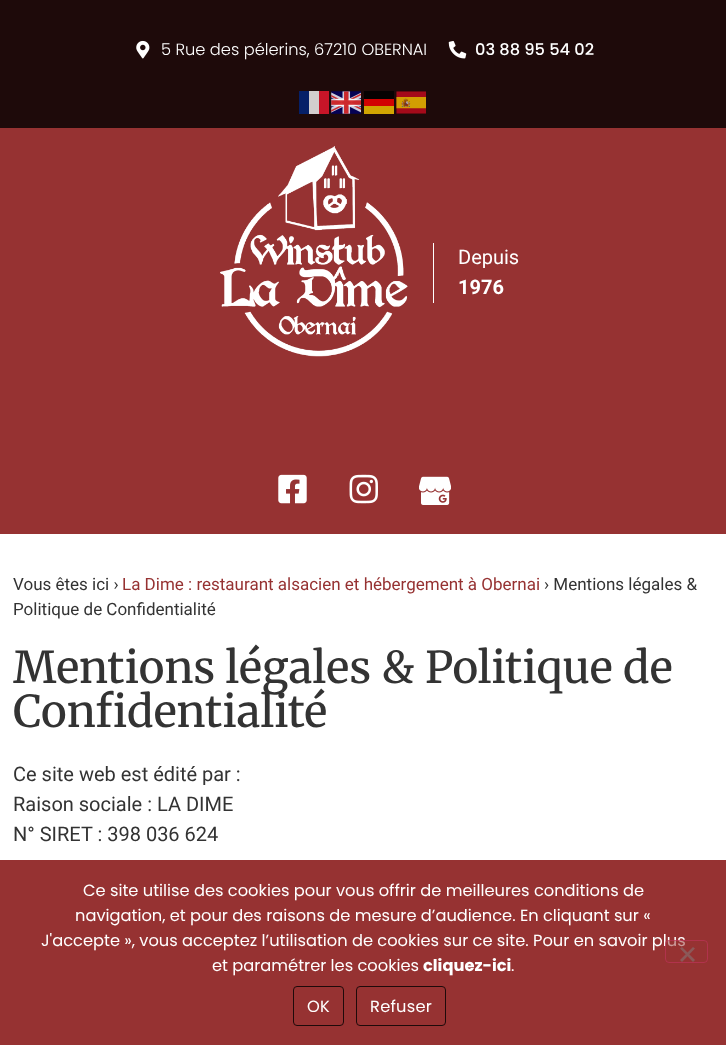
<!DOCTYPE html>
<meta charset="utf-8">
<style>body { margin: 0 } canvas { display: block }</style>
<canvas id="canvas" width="726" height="1045"></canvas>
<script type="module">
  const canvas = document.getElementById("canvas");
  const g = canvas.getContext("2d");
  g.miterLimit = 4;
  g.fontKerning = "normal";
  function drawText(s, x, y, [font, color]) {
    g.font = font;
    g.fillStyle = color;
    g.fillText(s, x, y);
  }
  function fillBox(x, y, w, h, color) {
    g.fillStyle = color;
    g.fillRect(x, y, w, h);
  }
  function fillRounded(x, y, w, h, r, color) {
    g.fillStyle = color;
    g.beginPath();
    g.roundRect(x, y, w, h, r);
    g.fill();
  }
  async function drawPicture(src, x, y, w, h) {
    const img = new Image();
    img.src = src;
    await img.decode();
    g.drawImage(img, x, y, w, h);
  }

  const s1 = ["300 16.25px Poppins", "#FFFFFF"];
  const s2 = ["500 16.25px Poppins", "#FFFFFF"];
  const s3 = ["20px Roboto", "#FFFFFF"];
  const s4 = ["bold 20px Roboto", "#FFFFFF"];
  const s5 = ["17px Roboto", "#333333"];
  const s6 = ["17px Roboto", "#963232"];
  const s7 = ["500 43.75px Merriweather", "#333333"];
  const s8 = ["20px Roboto", "#333333"];
  const s9 = ["16.25px Poppins", "#FFFFFF"];
  const s10 = ["bold 16.25px Poppins", "#FFFFFF"];

  fillBox(0, 0, 726, 1045, "#FFFFFF");
  fillBox(0, 0, 726, 128, "#1E0A0A");
  await drawPicture("pic1.png", 136, 40, 14, 19);
  drawText("5 Rue des pélerins, 67210 OBERNAI", 161, 55, s1);
  await drawPicture("pic2.png", 448, 41, 19, 18);
  drawText("03 88 95 54 02", 475, 55, s2);
  fillBox(299, 91, 10, 23, "#062068");
  fillBox(309, 91, 10, 23, "#D2CECE");
  fillBox(319, 91, 10, 23, "#C81528");
  await drawPicture("pic3.png", 331, 91, 30, 23);
  fillBox(364, 91, 30, 8, "#060202");
  await drawPicture("pic4.png", 396, 91, 30, 23);
  fillBox(364, 99, 30, 7, "#D20202");
  fillBox(364, 106, 30, 8, "#D2A502");
  fillBox(0, 128, 726, 406, "#963232");
  await drawPicture("pic5.png", 220, 146, 188, 211);
  fillBox(433, 243, 1, 60, "#FFFFFF");
  drawText("Depuis", 458, 264, s3);
  drawText("1976", 458, 294, s4);
  await drawPicture("pic6.png", 278, 474, 29, 30);
  await drawPicture("pic7.png", 349, 474, 29, 30);
  await drawPicture("pic8.png", 419, 476, 32, 29);
  drawText("Vous êtes ici ›", 13, 590, s5);
  drawText("La Dime : restaurant alsacien et hébergement à Obernai", 122, 590, s6);
  drawText("› Mentions légales &", 544, 590, s5);
  drawText("Politique de Confidentialité", 13, 615, s5);
  drawText("Mentions légales & Politique de", 13, 683, s7);
  drawText("Confidentialité", 13, 727, s7);
  drawText("Ce site web est édité par :", 13, 781, s8);
  drawText("Raison sociale : LA DIME", 13, 811, s8);
  drawText("N° SIRET : 398 036 624", 13, 841, s8);
  fillBox(0, 860, 726, 185, "#963232");
  drawText("Ce site utilise des cookies pour vous offrir de meilleures conditions de", 83, 896, s9);
  drawText("navigation, et pour des raisons de mesure d’audience. En cliquant sur «", 75, 921, s9);
  drawText("J'accepte », vous acceptez l’utilisation de cookies sur ce site. Pour en savoir plus", 41, 946, s9);
  drawText("et paramétrer les cookies", 212, 971, s9);
  drawText("cliquez-ici", 423, 971, s10);
  drawText(".", 511, 971, s9);
  fillRounded(665, 940, 43, 23, 4, "rgba(150, 50, 50, 0.5)");
  g.beginPath();
  g.roundRect(665.5, 940.5, 42, 22, 3.5);
  g.strokeStyle = "rgba(204, 51, 102, 0.5)";
  g.stroke();
  g.fillStyle = "#8B5959";
  g.beginPath();
  g.moveTo(693, 947);
  g.lineTo(695, 948.5);
  g.lineTo(682, 962);
  g.lineTo(680, 960);
  g.closePath();
  g.fill();
  g.beginPath();
  g.moveTo(680, 948.5);
  g.lineTo(682, 947);
  g.lineTo(695, 960);
  g.lineTo(693, 962);
  g.closePath();
  g.fill();
  g.beginPath();
  g.roundRect(293.5, 986.5, 50, 39, 3.5);
  g.strokeStyle = "#1E0A0A";
  g.stroke();
  g.letterSpacing = "0.25px";
  drawText("OK", 307, 1012, s9);
  g.beginPath();
  g.roundRect(356.5, 986.5, 89, 39, 3.5);
  g.stroke();
  drawText("Refuser", 370, 1012, s9);
</script>
